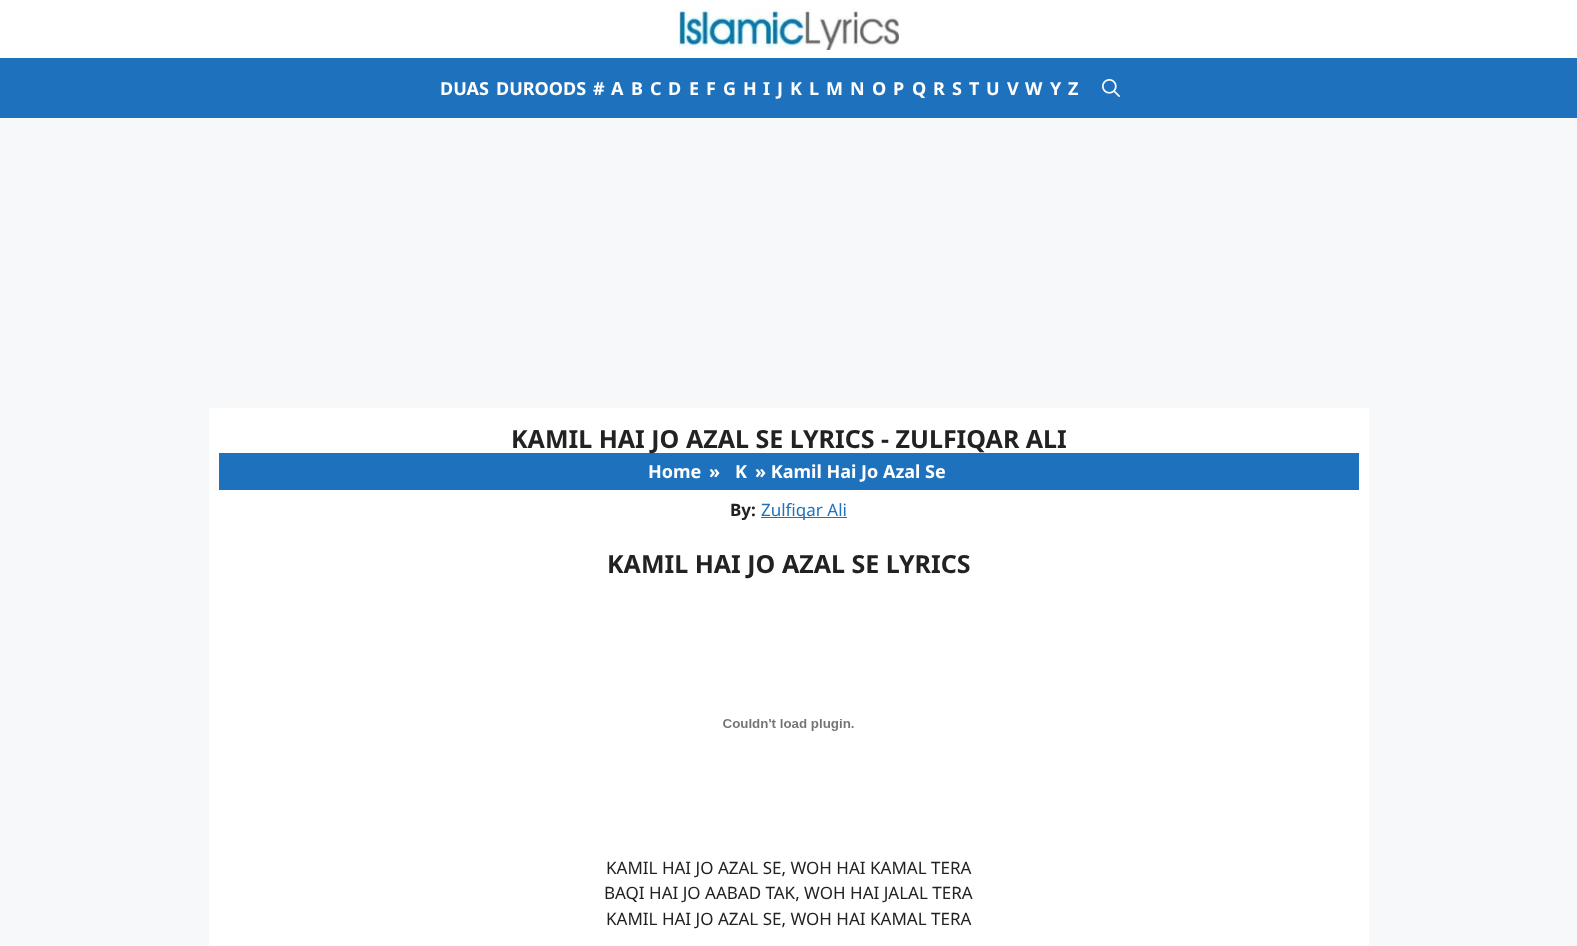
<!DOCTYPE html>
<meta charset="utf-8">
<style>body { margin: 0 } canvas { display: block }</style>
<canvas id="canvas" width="1577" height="946"></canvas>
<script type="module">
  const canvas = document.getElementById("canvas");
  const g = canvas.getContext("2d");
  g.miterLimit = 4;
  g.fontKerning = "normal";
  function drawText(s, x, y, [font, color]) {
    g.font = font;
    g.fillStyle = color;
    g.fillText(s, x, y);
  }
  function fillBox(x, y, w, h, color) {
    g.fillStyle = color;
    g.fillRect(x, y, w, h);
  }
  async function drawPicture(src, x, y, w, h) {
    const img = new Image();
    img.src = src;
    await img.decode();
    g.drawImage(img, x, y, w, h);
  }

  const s1 = ["bold 18px Noto Sans", "#FFFFFF"];
  const s2 = ["bold 25px Noto Sans", "#222222"];
  const s3 = ["bold 17px Noto Sans", "#222222"];
  const s4 = ["17px Noto Sans", "#1E73BE"];
  const s5 = ["17px Noto Sans", "#222222"];

  fillBox(0, 0, 1577, 946, "#F7F8F9");
  fillBox(0, 0, 1577, 58, "#FFFFFF");
  await drawPicture("pic1.png", 679, 8, 220, 42);
  fillBox(0, 58, 1577, 60, "#1E72BD");
  drawText("DUAS", 440, 95, s1);
  drawText("DUROODS", 496, 95, s1);
  drawText("#", 593, 95, s1);
  drawText("A", 611, 95, s1);
  drawText("B", 631, 95, s1);
  drawText("C", 650, 95, s1);
  drawText("D", 668, 95, s1);
  drawText("E", 689, 95, s1);
  drawText("F", 706, 95, s1);
  drawText("G", 723, 95, s1);
  drawText("H", 743, 95, s1);
  drawText("I", 763, 95, s1);
  drawText("J", 777, 95, s1);
  drawText("K", 790, 95, s1);
  drawText("L", 809, 95, s1);
  drawText("M", 826, 95, s1);
  drawText("N", 850, 95, s1);
  drawText("O", 872, 95, s1);
  drawText("P", 893, 95, s1);
  drawText("Q", 912, 95, s1);
  drawText("R", 933, 95, s1);
  drawText("S", 952, 95, s1);
  drawText("T", 969, 95, s1);
  drawText("U", 986, 95, s1);
  drawText("V", 1007, 95, s1);
  drawText("W", 1025, 95, s1);
  drawText("Y", 1050, 95, s1);
  drawText("Z", 1068, 95, s1);
  await drawPicture("pic2.png", 1102, 79, 18, 18);
  fillBox(209, 408, 1160, 538, "#FFFFFF");
  fillBox(219, 453, 1140, 37, "#1E72BD");
  drawText("KAMIL HAI JO AZAL SE LYRICS - ZULFIQAR ALI", 511, 448, s2);
  drawText("Home", 648, 478, s1);
  drawText("»", 709, 478, s1);
  drawText("K", 735, 478, s1);
  drawText("» Kamil Hai Jo Azal Se", 755, 478, s1);
  drawText("By:", 730, 516, s3);
  fillBox(761, 517, 86, 1, "#1E73BE");
  drawText("Zulfiqar Ali", 761, 516, s4);
  drawText("KAMIL HAI JO AZAL SE LYRICS", 607, 573, s2);
  await drawPicture("pic3.png", 723, 719, 131, 12);
  drawText("KAMIL HAI JO AZAL SE, WOH HAI KAMAL TERA", 606, 874, s5);
  drawText("BAQI HAI JO AABAD TAK, WOH HAI JALAL TERA", 604, 899, s5);
  drawText("KAMIL HAI JO AZAL SE, WOH HAI KAMAL TERA", 606, 925, s5);
</script>
